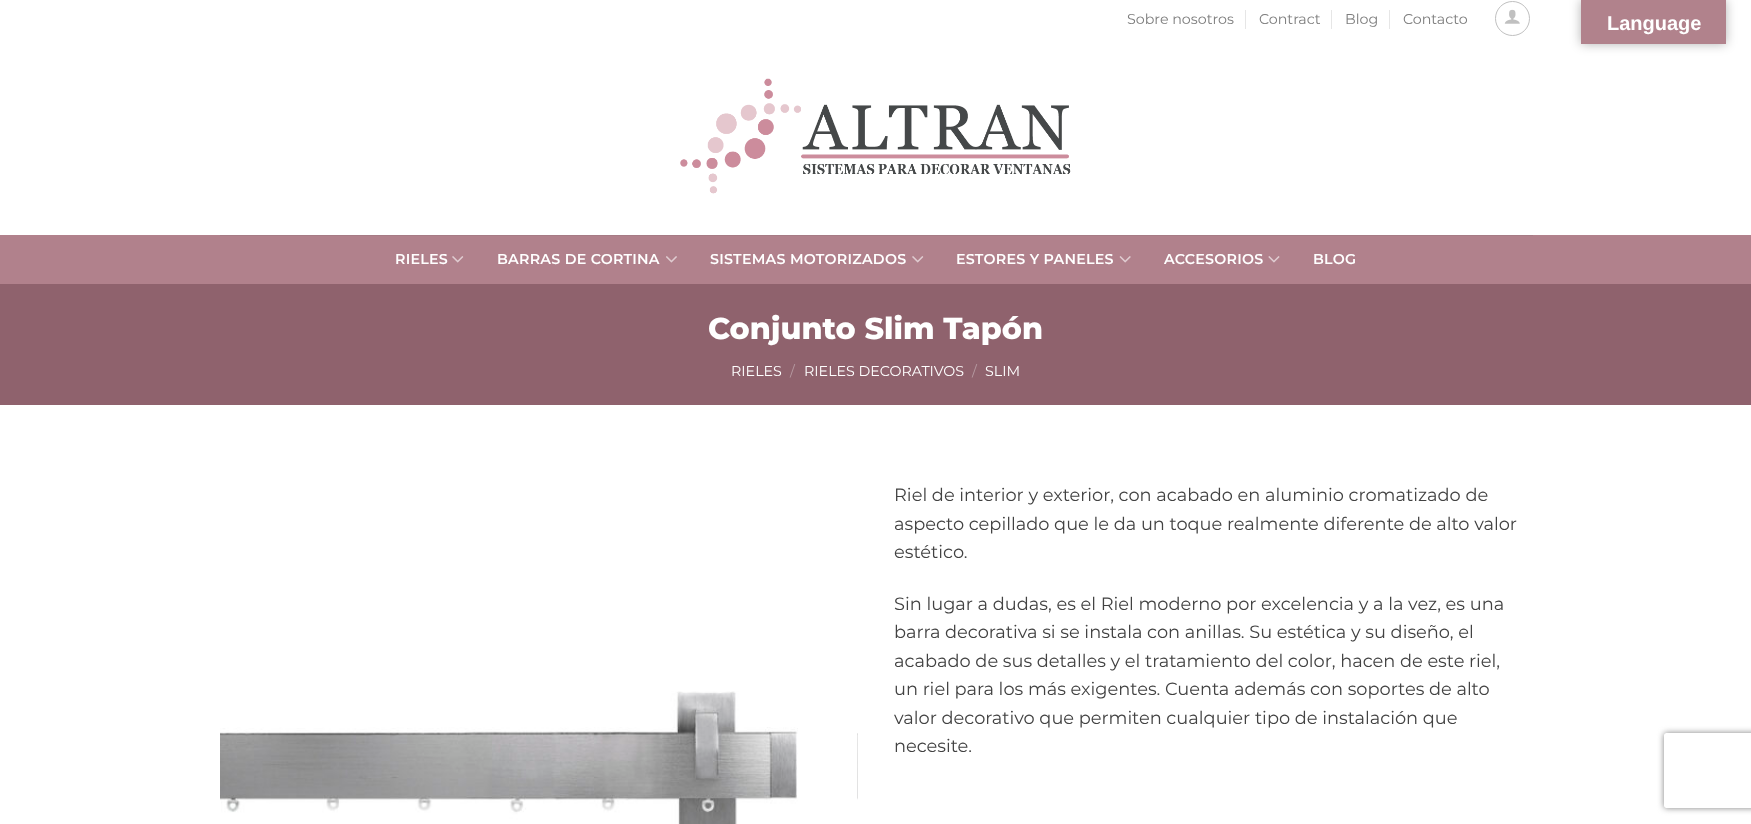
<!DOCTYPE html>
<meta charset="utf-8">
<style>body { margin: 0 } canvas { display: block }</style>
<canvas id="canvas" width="1751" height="824"></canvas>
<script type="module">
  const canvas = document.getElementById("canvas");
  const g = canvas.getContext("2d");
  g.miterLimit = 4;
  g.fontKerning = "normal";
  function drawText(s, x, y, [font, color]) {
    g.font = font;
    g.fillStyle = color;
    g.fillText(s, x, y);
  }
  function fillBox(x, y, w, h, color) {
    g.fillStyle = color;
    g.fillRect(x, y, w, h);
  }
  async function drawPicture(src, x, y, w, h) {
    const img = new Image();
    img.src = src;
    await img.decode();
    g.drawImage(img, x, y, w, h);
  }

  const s1 = ["14.25px Montserrat", "#7D7D7D"];
  const s2 = ["600 14.25px Montserrat", "#FFFFFF"];
  const s3 = ["800 30.25px Montserrat", "#FFFFFF"];
  const s4 = ["14.25px Montserrat", "#FFFFFF"];
  const s5 = ["14.25px Montserrat", "#B699A0"];
  const s6 = ["17.8px Montserrat", "#424242"];
  const s7 = ["bold 20px Liberation Sans", "#FFFFFF"];

  fillBox(0, 0, 1751, 824, "#FFFFFF");
  drawText("Sobre nosotros", 1127, 24, s1);
  fillBox(1245, 10, 1, 19, "#E6E6E6");
  drawText("Contract", 1259, 24, s1);
  fillBox(1331, 10, 1, 19, "#E6E6E6");
  drawText("Blog", 1345, 24, s1);
  fillBox(1389, 10, 1, 19, "#E6E6E6");
  drawText("Contacto", 1403, 24, s1);
  g.beginPath();
  g.arc(1512.5, 18.5, 17, 0, Math.PI * 2);
  g.strokeStyle = "#C0C0C0";
  g.stroke();
  await drawPicture("pic1.png", 1504, 9, 16, 15);
  await drawPicture("pic2.png", 680, 78, 391, 116);
  fillBox(0, 235, 1751, 49, "#B1818C");
  fillBox(220, 235, 1313, 1, "#A67B85");
  g.letterSpacing = "0.25px";
  drawText("RIELES", 395, 264, s2);
  await drawPicture("pic3.png", 452, 256, 12, 7);
  drawText("BARRAS DE CORTINA", 497, 264, s2);
  await drawPicture("pic4.png", 666, 256, 11, 7);
  drawText("SISTEMAS MOTORIZADOS", 710, 264, s2);
  await drawPicture("pic3.png", 912, 256, 12, 7);
  drawText("ESTORES Y PANELES", 956, 264, s2);
  await drawPicture("pic5.png", 1119, 256, 12, 7);
  drawText("ACCESORIOS", 1164, 264, s2);
  await drawPicture("pic6.png", 1268, 256, 12, 7);
  drawText("BLOG", 1313, 264, s2);
  fillBox(0, 284, 1751, 121, "#8F626D");
  g.letterSpacing = "0px";
  drawText("Conjunto Slim Tapón", 708, 339, s3);
  drawText("RIELES", 731, 376, s4);
  drawText("/", 790, 376, s5);
  drawText("RIELES DECORATIVOS", 804, 376, s4);
  drawText("/", 972, 376, s5);
  drawText("SLIM", 985, 376, s4);
  await drawPicture("pic7.png", 220, 691, 578, 133);
  await drawPicture("pic8.png", 857, 733, 1, 67);
  drawText("Riel de interior y exterior, con acabado en aluminio cromatizado de", 894, 501, s6);
  drawText("aspecto cepillado que le da un toque realmente diferente de alto valor", 894, 530, s6);
  drawText("estético.", 894, 558, s6);
  drawText("Sin lugar a dudas, es el Riel moderno por excelencia y a la vez, es una", 894, 610, s6);
  drawText("barra decorativa si se instala con anillas. Su estética y su diseño, el", 894, 638, s6);
  drawText("acabado de sus detalles y el tratamiento del color, hacen de este riel,", 894, 667, s6);
  drawText("un riel para los más exigentes. Cuenta además con soportes de alto", 894, 695, s6);
  drawText("valor decorativo que permiten cualquier tipo de instalación que", 894, 724, s6);
  drawText("necesite.", 894, 752, s6);
  g.fillStyle = "rgba(0, 0, 0, 0.3)";
  g.filter = "blur(5.5px)";
  g.beginPath();
  g.rect(1581, 0, 145, 44);
  g.fill();
  g.filter = "none";
  fillBox(1581, 0, 145, 44, "#B1828C");
  drawText("Language", 1607, 30, s7);
  g.save();
  g.beginPath();
  g.moveTo(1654, 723);
  g.lineTo(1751, 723);
  g.lineTo(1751, 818);
  g.lineTo(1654, 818);
  g.closePath();
  g.moveTo(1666.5, 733);
  g.lineTo(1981.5, 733);
  g.bezierCurveTo(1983, 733, 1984, 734, 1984, 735.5);
  g.lineTo(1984, 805.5);
  g.bezierCurveTo(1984, 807, 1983, 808, 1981.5, 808);
  g.lineTo(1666.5, 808);
  g.bezierCurveTo(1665, 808, 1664, 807, 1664, 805.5);
  g.lineTo(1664, 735.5);
  g.bezierCurveTo(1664, 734, 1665, 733, 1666.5, 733);
  g.closePath();
  g.clip("evenodd");
  g.fillStyle = "#808080";
  g.filter = "blur(3px)";
  g.beginPath();
  g.roundRect(1664, 733, 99, 75, 2.5);
  g.fill();
  g.filter = "none";
  g.restore();
</script>
